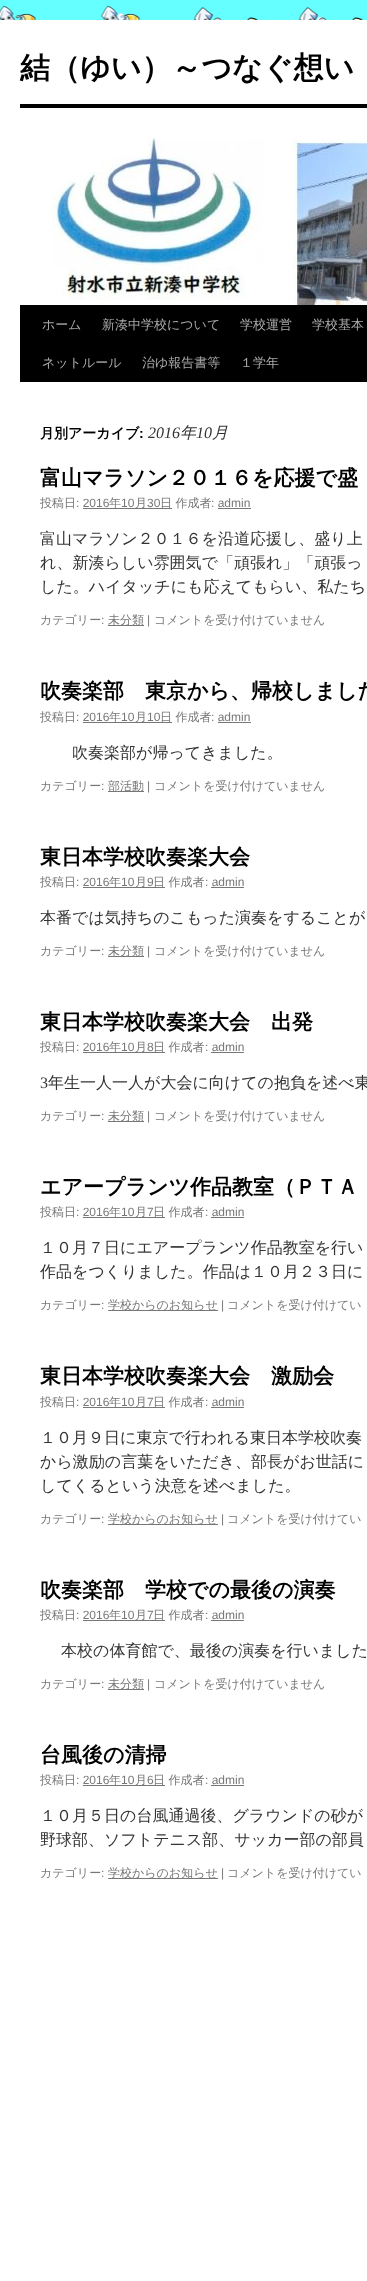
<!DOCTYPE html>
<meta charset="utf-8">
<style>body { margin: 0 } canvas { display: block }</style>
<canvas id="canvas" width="367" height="2281"></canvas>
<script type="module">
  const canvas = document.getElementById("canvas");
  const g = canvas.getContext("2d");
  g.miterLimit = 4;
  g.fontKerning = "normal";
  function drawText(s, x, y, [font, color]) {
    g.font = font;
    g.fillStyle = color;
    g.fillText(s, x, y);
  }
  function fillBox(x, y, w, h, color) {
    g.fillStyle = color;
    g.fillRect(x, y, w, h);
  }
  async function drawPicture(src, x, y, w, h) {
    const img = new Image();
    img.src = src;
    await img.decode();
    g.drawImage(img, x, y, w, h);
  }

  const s1 = ["bold 30px WenQuanYi Zen Hei", "#000000"];
  const s2 = ["500 13px WenQuanYi Zen Hei", "#AAAAAA"];
  const s3 = ["bold 14px WenQuanYi Zen Hei", "#000000"];
  const s4 = ["bold 14px Liberation Sans", "#000000"];
  const s5 = ["italic 16px Liberation Serif", "#333333"];
  const s6 = ["italic 500 16px WenQuanYi Zen Hei", "#333333"];
  const s7 = ["bold 21px WenQuanYi Zen Hei", "#000000"];
  const s8 = ["500 12px WenQuanYi Zen Hei", "#777777"];
  const s9 = ["12px Liberation Sans", "#777777"];
  const s10 = ["500 16px WenQuanYi Zen Hei", "#333333"];
  const s11 = ["16px Liberation Serif", "#333333"];

  fillBox(0, 0, 367, 2281, "#FFFFFF");
  await drawPicture("pic1.png", 0, 0, 367, 20);
  drawText("結（ゆい）～つなぐ想い", 20, 78, s1);
  fillBox(20, 104, 347, 4, "#000000");
  fillBox(20, 305, 347, 77, "#000000");
  await drawPicture("pic2.png", 52, 138, 315, 167);
  drawText("ホーム", 42, 329, s2);
  drawText("新湊中学校について", 102, 329, s2);
  drawText("学校運営", 240, 329, s2);
  drawText("学校基本", 312, 329, s2);
  drawText("ネットルール", 42, 367, s2);
  drawText("治ゆ報告書等", 142, 367, s2);
  drawText("１学年", 240, 367, s2);
  drawText("月別アーカイブ", 40, 438, s3);
  drawText(":", 139, 438, s4);
  drawText("2016", 148, 438, s5);
  drawText("年", 180, 438, s6);
  drawText("10", 196, 438, s5);
  drawText("月", 212, 438, s6);
  drawText("富山マラソン２０１６を応援で盛", 40, 485, s7);
  drawText("投稿日", 40, 507, s8);
  drawText(": 2016", 76, 507, s9);
  fillBox(83, 508, 89, 1, "#777777");
  drawText("年", 109, 507, s8);
  drawText("10", 121, 507, s9);
  drawText("月", 135, 507, s8);
  drawText("30", 147, 507, s9);
  drawText("日 作成者", 160, 507, s8);
  drawText(": admin", 211, 507, s9);
  fillBox(218, 508, 33, 1, "#777777");
  drawText("富山マラソン２０１６を沿道応援し、盛り上", 40, 544, s10);
  drawText("れ、新湊らしい雰囲気で「頑張れ」「頑張っ", 40, 568, s10);
  drawText("した。ハイタッチにも応えてもらい、私たち", 40, 592, s10);
  drawText("カテゴリー", 40, 624, s8);
  drawText(":", 101, 624, s9);
  fillBox(108, 625, 36, 1, "#777777");
  drawText("未分類", 108, 624, s8);
  drawText("|", 147, 624, s9);
  drawText("コメントを受け付けていません", 154, 624, s8);
  drawText("吹奏楽部　東京から、帰校しました", 40, 698, s7);
  drawText("投稿日", 40, 721, s8);
  drawText(": 2016", 76, 721, s9);
  fillBox(83, 722, 89, 1, "#777777");
  drawText("年", 109, 721, s8);
  drawText("10", 121, 721, s9);
  drawText("月", 135, 721, s8);
  drawText("10", 147, 721, s9);
  drawText("日 作成者", 160, 721, s8);
  drawText(": admin", 211, 721, s9);
  fillBox(218, 722, 33, 1, "#777777");
  drawText("吹奏楽部が帰ってきました。", 72, 758, s10);
  drawText("カテゴリー", 40, 790, s8);
  drawText(":", 101, 790, s9);
  fillBox(108, 791, 36, 1, "#777777");
  drawText("部活動", 108, 790, s8);
  drawText("|", 147, 790, s9);
  drawText("コメントを受け付けていません", 154, 790, s8);
  drawText("東日本学校吹奏楽大会", 40, 864, s7);
  drawText("投稿日", 40, 886, s8);
  drawText(": 2016", 76, 886, s9);
  fillBox(83, 887, 82, 1, "#777777");
  drawText("年", 109, 886, s8);
  drawText("10", 121, 886, s9);
  drawText("月", 135, 886, s8);
  drawText("9", 147, 886, s9);
  drawText("日 作成者", 153, 886, s8);
  drawText(": admin", 205, 886, s9);
  fillBox(211, 887, 33, 1, "#777777");
  drawText("本番では気持ちのこもった演奏をすることが", 40, 923, s10);
  drawText("カテゴリー", 40, 955, s8);
  drawText(":", 101, 955, s9);
  fillBox(108, 956, 36, 1, "#777777");
  drawText("未分類", 108, 955, s8);
  drawText("|", 147, 955, s9);
  drawText("コメントを受け付けていません", 154, 955, s8);
  drawText("東日本学校吹奏楽大会　出発", 40, 1029, s7);
  drawText("投稿日", 40, 1051, s8);
  drawText(": 2016", 76, 1051, s9);
  fillBox(83, 1052, 82, 1, "#777777");
  drawText("年", 109, 1051, s8);
  drawText("10", 121, 1051, s9);
  drawText("月", 135, 1051, s8);
  drawText("8", 147, 1051, s9);
  drawText("日 作成者", 153, 1051, s8);
  drawText(": admin", 205, 1051, s9);
  fillBox(211, 1052, 33, 1, "#777777");
  drawText("3", 40, 1088, s11);
  drawText("年生一人一人が大会に向けての抱負を述べ東", 48, 1088, s10);
  drawText("カテゴリー", 40, 1120, s8);
  drawText(":", 101, 1120, s9);
  fillBox(108, 1121, 36, 1, "#777777");
  drawText("未分類", 108, 1120, s8);
  drawText("|", 147, 1120, s9);
  drawText("コメントを受け付けていません", 154, 1120, s8);
  drawText("エアープランツ作品教室（ＰＴＡ", 40, 1194, s7);
  drawText("投稿日", 40, 1216, s8);
  drawText(": 2016", 76, 1216, s9);
  fillBox(83, 1217, 82, 1, "#777777");
  drawText("年", 109, 1216, s8);
  drawText("10", 121, 1216, s9);
  drawText("月", 135, 1216, s8);
  drawText("7", 147, 1216, s9);
  drawText("日 作成者", 153, 1216, s8);
  drawText(": admin", 205, 1216, s9);
  fillBox(211, 1217, 33, 1, "#777777");
  drawText("１０月７日にエアープランツ作品教室を行い", 40, 1253, s10);
  drawText("作品をつくりました。作品は１０月２３日に", 40, 1277, s10);
  drawText("カテゴリー", 40, 1309, s8);
  drawText(":", 101, 1309, s9);
  fillBox(108, 1310, 110, 1, "#777777");
  drawText("学校からのお知らせ", 108, 1309, s8);
  drawText("|", 221, 1309, s9);
  drawText("コメントを受け付けてい", 227, 1309, s8);
  drawText("東日本学校吹奏楽大会　激励会", 40, 1383, s7);
  drawText("投稿日", 40, 1406, s8);
  drawText(": 2016", 76, 1406, s9);
  fillBox(83, 1407, 82, 1, "#777777");
  drawText("年", 109, 1406, s8);
  drawText("10", 121, 1406, s9);
  drawText("月", 135, 1406, s8);
  drawText("7", 147, 1406, s9);
  drawText("日 作成者", 153, 1406, s8);
  drawText(": admin", 205, 1406, s9);
  fillBox(211, 1407, 33, 1, "#777777");
  drawText("１０月９日に東京で行われる東日本学校吹奏", 40, 1443, s10);
  drawText("から激励の言葉をいただき、部長がお世話に", 40, 1467, s10);
  drawText("してくるという決意を述べました。", 40, 1491, s10);
  drawText("カテゴリー", 40, 1523, s8);
  drawText(":", 101, 1523, s9);
  fillBox(108, 1524, 110, 1, "#777777");
  drawText("学校からのお知らせ", 108, 1523, s8);
  drawText("|", 221, 1523, s9);
  drawText("コメントを受け付けてい", 227, 1523, s8);
  drawText("吹奏楽部　学校での最後の演奏", 40, 1597, s7);
  drawText("投稿日", 40, 1619, s8);
  drawText(": 2016", 76, 1619, s9);
  fillBox(83, 1620, 82, 1, "#777777");
  drawText("年", 109, 1619, s8);
  drawText("10", 121, 1619, s9);
  drawText("月", 135, 1619, s8);
  drawText("7", 147, 1619, s9);
  drawText("日 作成者", 153, 1619, s8);
  drawText(": admin", 205, 1619, s9);
  fillBox(211, 1620, 33, 1, "#777777");
  drawText("本校の体育館で、最後の演奏を行いました", 61, 1656, s10);
  drawText("カテゴリー", 40, 1688, s8);
  drawText(":", 101, 1688, s9);
  fillBox(108, 1689, 36, 1, "#777777");
  drawText("未分類", 108, 1688, s8);
  drawText("|", 147, 1688, s9);
  drawText("コメントを受け付けていません", 154, 1688, s8);
  drawText("台風後の清掃", 40, 1762, s7);
  drawText("投稿日", 40, 1784, s8);
  drawText(": 2016", 76, 1784, s9);
  fillBox(83, 1785, 82, 1, "#777777");
  drawText("年", 109, 1784, s8);
  drawText("10", 121, 1784, s9);
  drawText("月", 135, 1784, s8);
  drawText("6", 147, 1784, s9);
  drawText("日 作成者", 153, 1784, s8);
  drawText(": admin", 205, 1784, s9);
  fillBox(211, 1785, 33, 1, "#777777");
  drawText("１０月５日の台風通過後、グラウンドの砂が", 40, 1821, s10);
  drawText("野球部、ソフトテニス部、サッカー部の部員", 40, 1845, s10);
  drawText("カテゴリー", 40, 1877, s8);
  drawText(":", 101, 1877, s9);
  fillBox(108, 1878, 110, 1, "#777777");
  drawText("学校からのお知らせ", 108, 1877, s8);
  drawText("|", 221, 1877, s9);
  drawText("コメントを受け付けてい", 227, 1877, s8);
</script>
